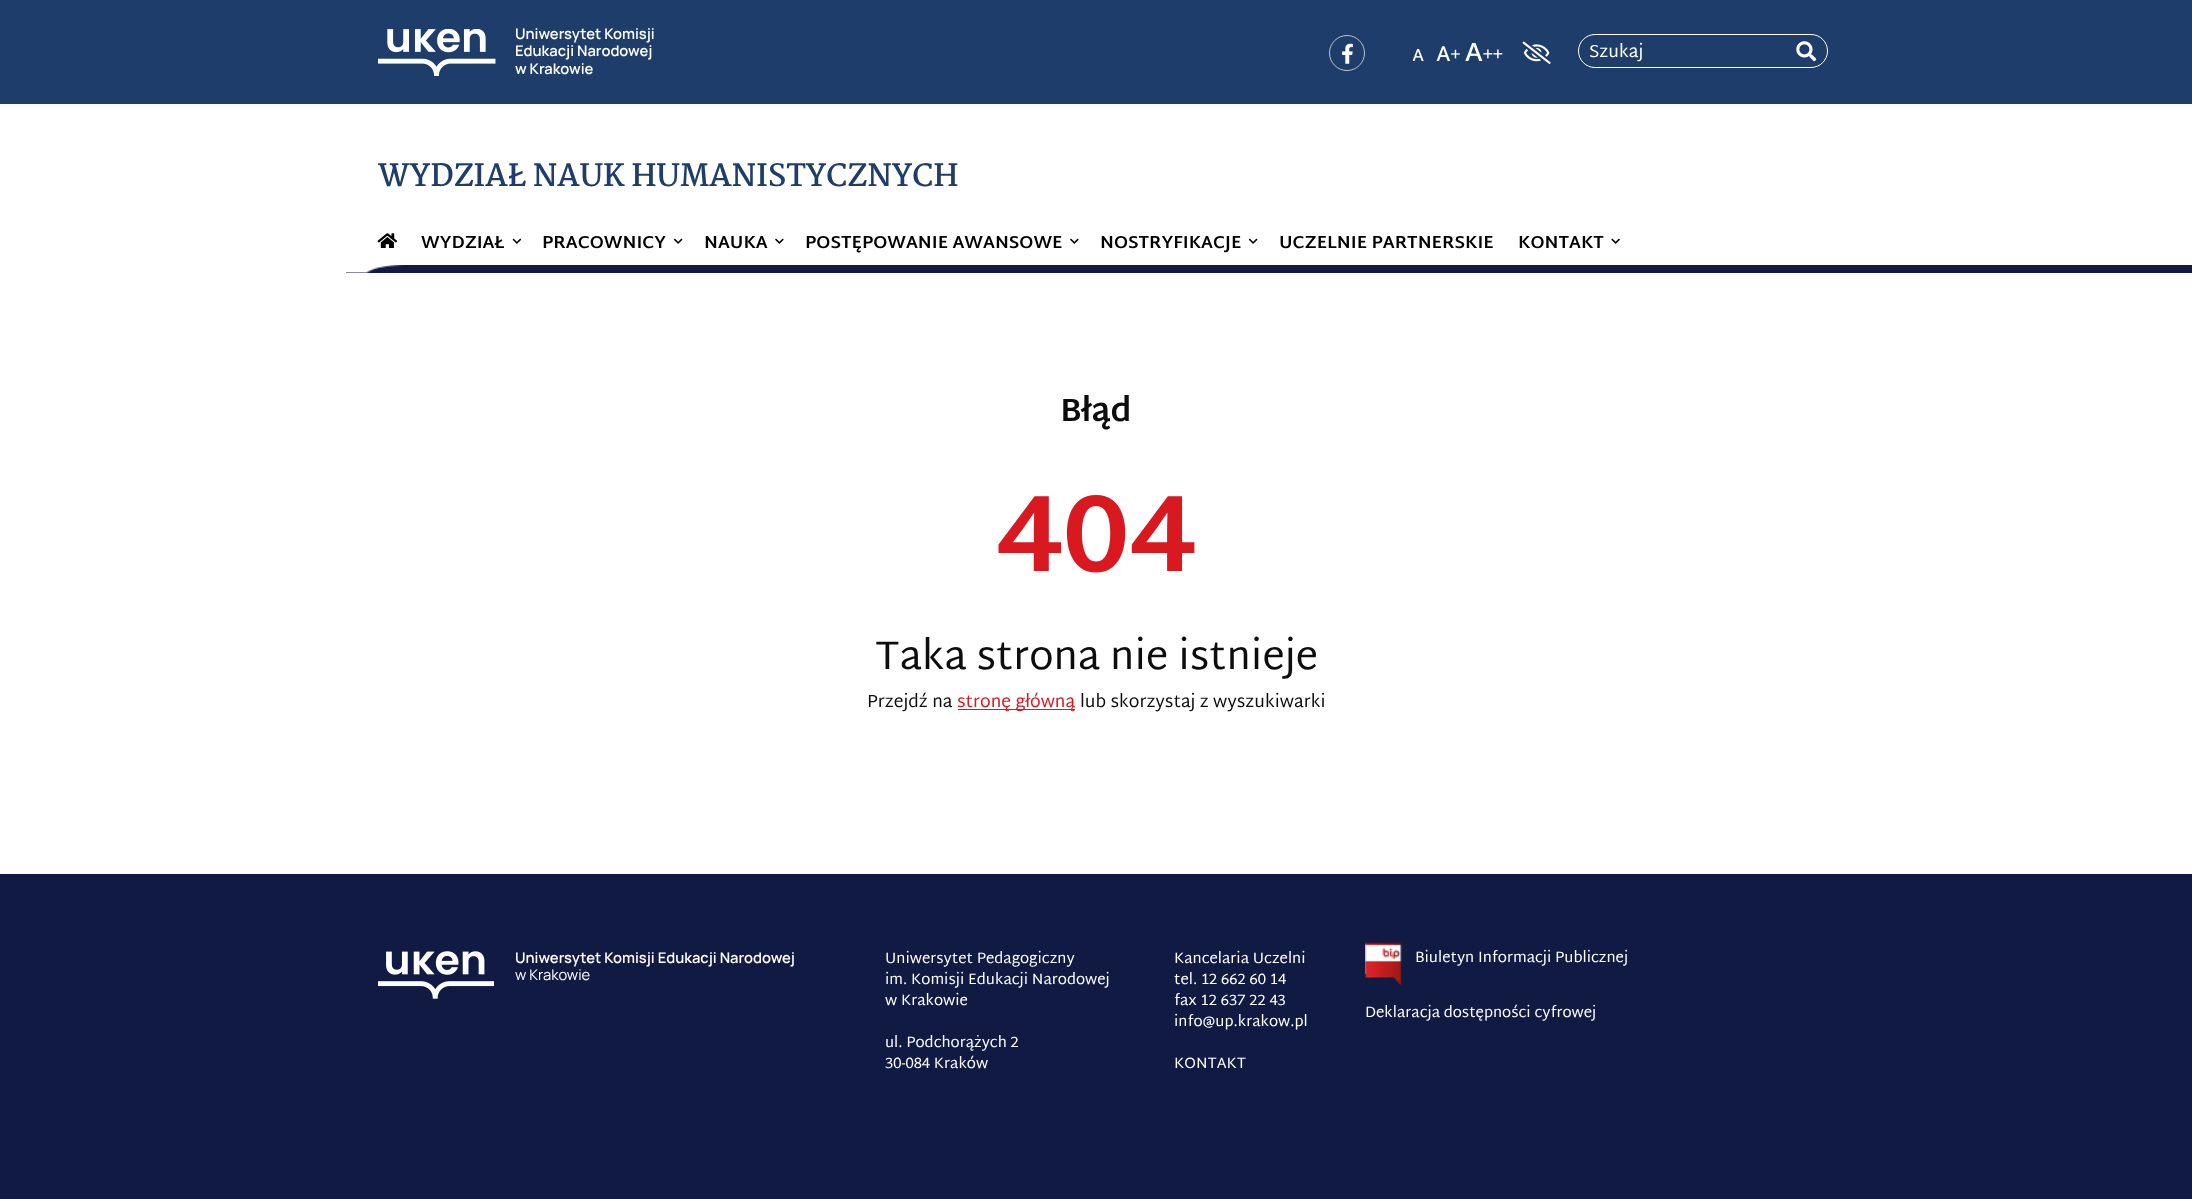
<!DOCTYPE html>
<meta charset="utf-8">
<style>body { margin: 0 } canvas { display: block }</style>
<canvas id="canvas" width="2192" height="1199"></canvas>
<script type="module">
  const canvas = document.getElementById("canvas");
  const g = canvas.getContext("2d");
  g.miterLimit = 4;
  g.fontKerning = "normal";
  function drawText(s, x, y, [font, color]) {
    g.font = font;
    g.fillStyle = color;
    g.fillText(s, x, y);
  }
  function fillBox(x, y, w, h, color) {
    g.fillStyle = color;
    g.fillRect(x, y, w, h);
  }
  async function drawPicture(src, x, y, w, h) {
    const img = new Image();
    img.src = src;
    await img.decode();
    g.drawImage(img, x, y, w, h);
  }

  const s1 = ["600 14.75px Manrope", "#FFFFFF"];
  const s2 = ["17.5px Martel Sans", "#FFFFFF"];
  const s3 = ["bold 30px Martel", "#1F3D6B"];
  const s4 = ["bold 17.5px Martel Sans", "#000000"];
  const s5 = ["bold 32.5px Martel Sans", "#0D0D0D"];
  const s6 = ["bold 110px Martel Sans", "#D81920"];
  const s7 = ["40px Martel Sans", "#0D0D0D"];
  const s8 = ["17.5px Martel Sans", "#0D0D0D"];
  const s9 = ["17.5px Martel Sans", "#D81920"];
  const s10 = ["14.75px Manrope", "#FFFFFF"];
  const s11 = ["15px Martel Sans", "#FFFFFF"];

  fillBox(0, 0, 2192, 1199, "#FFFFFF");
  fillBox(0, 0, 2192, 104, "#1F3D6B");
  await drawPicture("pic1.png", 378, 29, 118, 47);
  drawText("Uniwersytet Komisji", 515, 39, s1);
  drawText("Edukacji Narodowej", 515, 56, s1);
  drawText("w Krakowie", 515, 74, s1);
  g.beginPath();
  g.arc(1347, 53, 17.5, 0, Math.PI * 2);
  g.strokeStyle = "#BCC5D3";
  g.stroke();
  await drawPicture("pic2.png", 1342, 43, 11, 21);
  await drawPicture("pic3.png", 1413, 49, 11, 12);
  await drawPicture("pic4.png", 1436, 46, 24, 15);
  await drawPicture("pic5.png", 1465, 43, 38, 18);
  await drawPicture("pic6.png", 1522, 41, 29, 23);
  g.beginPath();
  g.roundRect(1578.5, 34.5, 249, 33, 16.5);
  g.strokeStyle = "#FFFFFF";
  g.stroke();
  drawText("Szukaj", 1589, 57, s2);
  await drawPicture("pic7.png", 1796, 41, 21, 21);
  drawText("WYDZIAŁ NAUK HUMANISTYCZNYCH", 378, 186, s3);
  await drawPicture("pic8.png", 377, 233, 21, 15);
  drawText("WYDZIAŁ", 421, 248, s4);
  await drawPicture("pic9.png", 512, 238, 10, 6);
  drawText("PRACOWNICY", 542, 248, s4);
  await drawPicture("pic10.png", 673, 238, 10, 6);
  drawText("NAUKA", 704, 248, s4);
  await drawPicture("pic11.png", 775, 238, 9, 6);
  drawText("POSTĘPOWANIE AWANSOWE", 805, 248, s4);
  await drawPicture("pic11.png", 1070, 238, 9, 6);
  drawText("NOSTRYFIKACJE", 1100, 248, s4);
  await drawPicture("pic10.png", 1248, 238, 10, 6);
  drawText("UCZELNIE PARTNERSKIE", 1279, 248, s4);
  drawText("KONTAKT", 1518, 248, s4);
  await drawPicture("pic12.png", 1611, 238, 9, 6);
  fillBox(346, 265, 1846, 8, "#101A43");
  await drawPicture("pic13.png", 346, 265, 57, 8);
  drawText("Błąd", 1060, 421, s5);
  drawText("404", 996, 571, s6);
  drawText("Taka strona nie istnieje", 875, 669, s7);
  drawText("Przejdź na", 867, 707, s8);
  fillBox(958, 709, 117, 1, "#D81920");
  drawText("stronę główną", 957, 707, s9);
  drawText("lub skorzystaj z wyszukiwarki", 1080, 707, s8);
  fillBox(0, 874, 2192, 325, "#101A43");
  await drawPicture("pic14.png", 378, 951, 116, 48);
  drawText("Uniwersytet Komisji Edukacji Narodowej", 515, 963, s1);
  drawText("w Krakowie", 515, 980, s10);
  drawText("Uniwersytet Pedagogiczny", 885, 963, s11);
  drawText("im. Komisji Edukacji Narodowej", 885, 984, s11);
  drawText("w Krakowie", 885, 1005, s11);
  drawText("ul. Podchorążych 2", 885, 1047, s11);
  drawText("30-084 Kraków", 885, 1068, s11);
  drawText("Kancelaria Uczelni", 1174, 963, s11);
  drawText("tel. 12 662 60 14", 1174, 984, s11);
  drawText("fax 12 637 22 43", 1174, 1005, s11);
  drawText("info@up.krakow.pl", 1174, 1026, s11);
  drawText("KONTAKT", 1174, 1068, s11);
  await drawPicture("pic15.png", 1365, 942, 37, 43);
  drawText("Biuletyn Informacji Publicznej", 1415, 962, s11);
  drawText("Deklaracja dostępności cyfrowej", 1365, 1017, s11);
</script>
